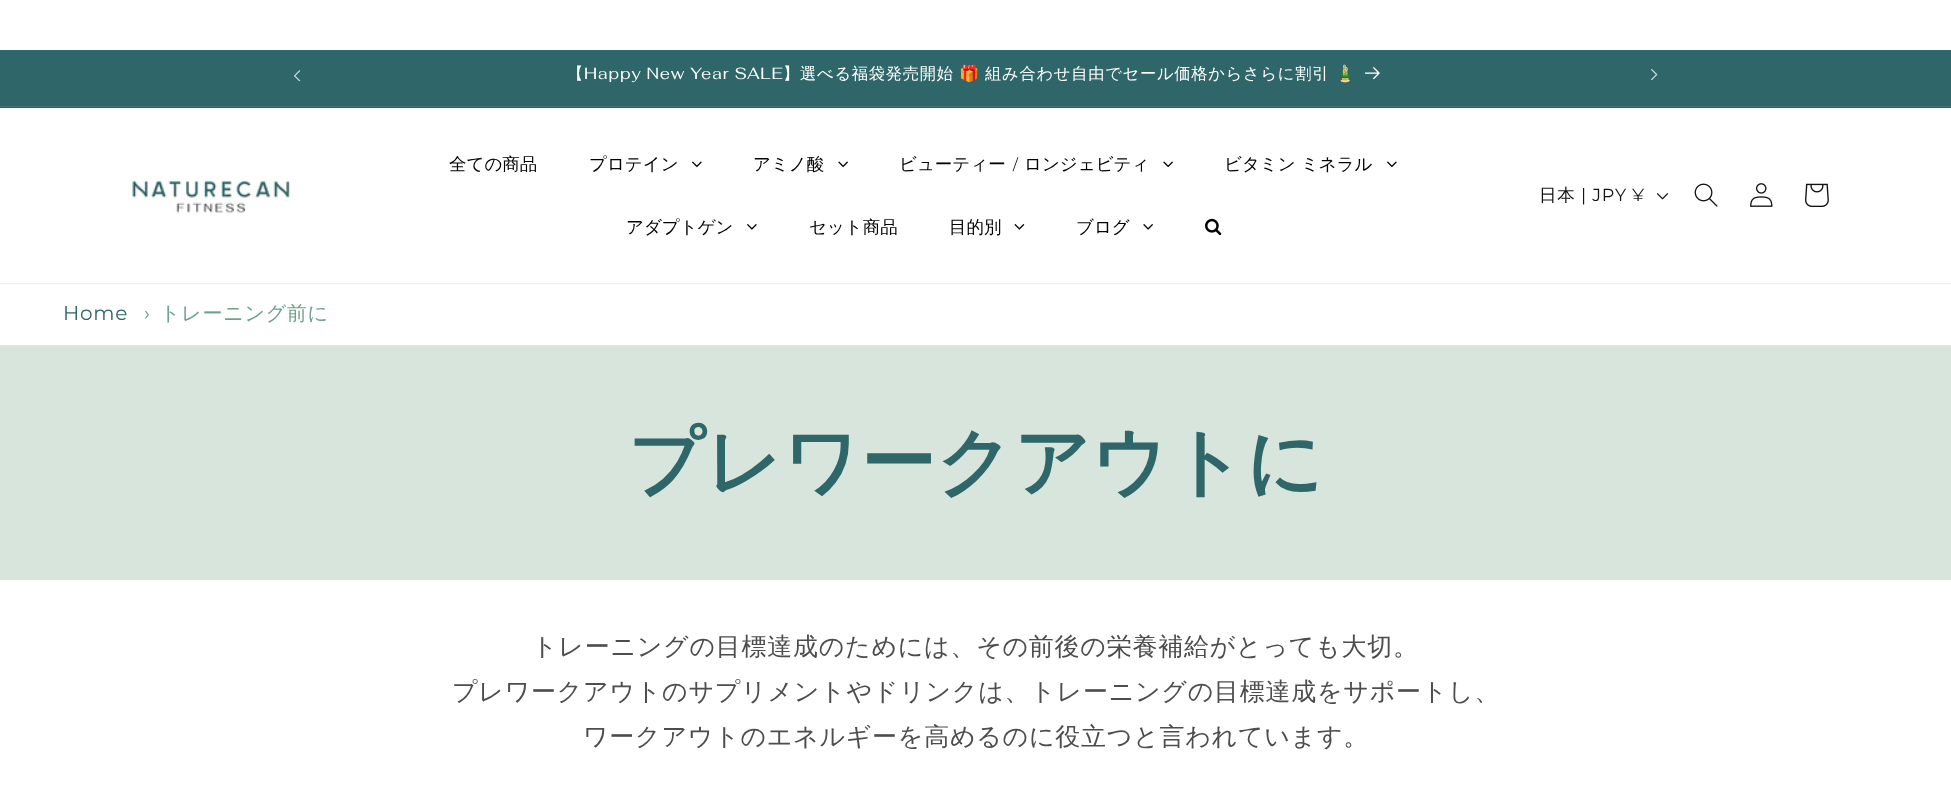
<!DOCTYPE html>
<meta charset="utf-8">
<style>body { margin: 0 } canvas { display: block }</style>
<canvas id="canvas" width="1951" height="803"></canvas>
<script type="module">
  const canvas = document.getElementById("canvas");
  const g = canvas.getContext("2d");
  g.miterLimit = 4;
  g.fontKerning = "normal";
  function drawText(s, x, y, [font, color]) {
    g.font = font;
    g.fillStyle = color;
    g.fillText(s, x, y);
  }
  function fillBox(x, y, w, h, color) {
    g.fillStyle = color;
    g.fillRect(x, y, w, h);
  }
  async function drawPicture(src, x, y, w, h) {
    const img = new Image();
    img.src = src;
    await img.decode();
    g.drawImage(img, x, y, w, h);
  }

  const s1 = ["500 16.25px WenQuanYi Zen Hei", "#FFFFFF"];
  const s2 = ["16.25px Fahkwang", "#FFFFFF"];
  const s3 = ["16.25px Noto Color Emoji", "#FFFFFF"];
  const s4 = ["500 17.5px WenQuanYi Zen Hei", "#000000"];
  const s5 = ["300 17.5px Work Sans", "#000000"];
  const s6 = ["500 17.5px WenQuanYi Zen Hei", "#121212"];
  const s7 = ["100 17.5px Montserrat", "#121212"];
  const s8 = ["100 20px Montserrat", "#2E6669"];
  const s9 = ["100 20px Montserrat", "#70A18C"];
  const s10 = ["500 20px WenQuanYi Zen Hei", "#70A18C"];
  const s11 = ["bold 75px WenQuanYi Zen Hei", "#2E6669"];
  const s12 = ["500 25px WenQuanYi Zen Hei", "#4D4D4D"];

  fillBox(0, 0, 1951, 803, "#FFFFFF");
  fillBox(0, 50, 1951, 58, "#2E6669");
  fillBox(0, 106, 1951, 1, "#3F7275");
  await drawPicture("pic1.png", 294, 70, 7, 12);
  g.letterSpacing = "0.75px";
  drawText("【", 567, 79, s1);
  drawText("Happy New Year SALE", 584, 79, s2);
  drawText("】選べる福袋発売開始", 783, 79, s1);
  drawText("🎁", 959, 79, s3);
  drawText("組み合わせ自由でセール価格からさらに割引", 985, 79, s1);
  drawText("🎍", 1335, 79, s3);
  await drawPicture("pic2.png", 1365, 67, 15, 13);
  await drawPicture("pic3.png", 1651, 69, 7, 12);
  fillBox(0, 283, 1951, 1, "#ECECEC");
  await drawPicture("pic4.png", 130, 176, 162, 40);
  g.letterSpacing = "0px";
  drawText("全ての商品", 449, 170, s4);
  drawText("プロテイン", 589, 170, s4);
  await drawPicture("pic5.png", 692, 161, 10, 7);
  drawText("アミノ酸", 753, 170, s4);
  await drawPicture("pic6.png", 838, 161, 10, 7);
  drawText("ビューティー", 899, 170, s4);
  drawText("/", 1012, 170, s5);
  drawText("ロンジェビティ", 1024, 170, s4);
  await drawPicture("pic6.png", 1163, 161, 10, 7);
  drawText("ビタミン ミネラル", 1224, 170, s4);
  await drawPicture("pic5.png", 1387, 161, 10, 7);
  drawText("アダプトゲン", 626, 233, s4);
  await drawPicture("pic7.png", 747, 224, 10, 6);
  drawText("セット商品", 809, 233, s4);
  drawText("目的別", 949, 233, s4);
  await drawPicture("pic8.png", 1014, 224, 11, 6);
  drawText("ブログ", 1076, 233, s4);
  await drawPicture("pic9.png", 1143, 224, 10, 6);
  await drawPicture("pic10.png", 1205, 218, 17, 18);
  g.letterSpacing = "0.75px";
  drawText("日本", 1539, 201, s6);
  drawText("| JPY ¥", 1581, 201, s7);
  await drawPicture("pic11.png", 1656, 193, 13, 7);
  await drawPicture("pic12.png", 1694, 183, 24, 24);
  await drawPicture("pic13.png", 1750, 183, 23, 24);
  await drawPicture("pic14.png", 1805, 183, 24, 24);
  drawText("Home", 63, 320, s8);
  drawText("›", 144, 320, s9);
  drawText("トレーニング前に", 160, 320, s10);
  fillBox(0, 345, 1951, 235, "#D7E5DC");
  drawText("プレワークアウトに", 628, 488, s11);
  drawText("トレーニングの目標達成のためには、その前後の栄養補給がとっても大切。", 532, 655, s12);
  drawText("プレワークアウトのサプリメントやドリンクは、トレーニングの目標達成をサポートし、", 452, 700, s12);
  drawText("ワークアウトのエネルギーを高めるのに役立つと言われています。", 583, 745, s12);
</script>
